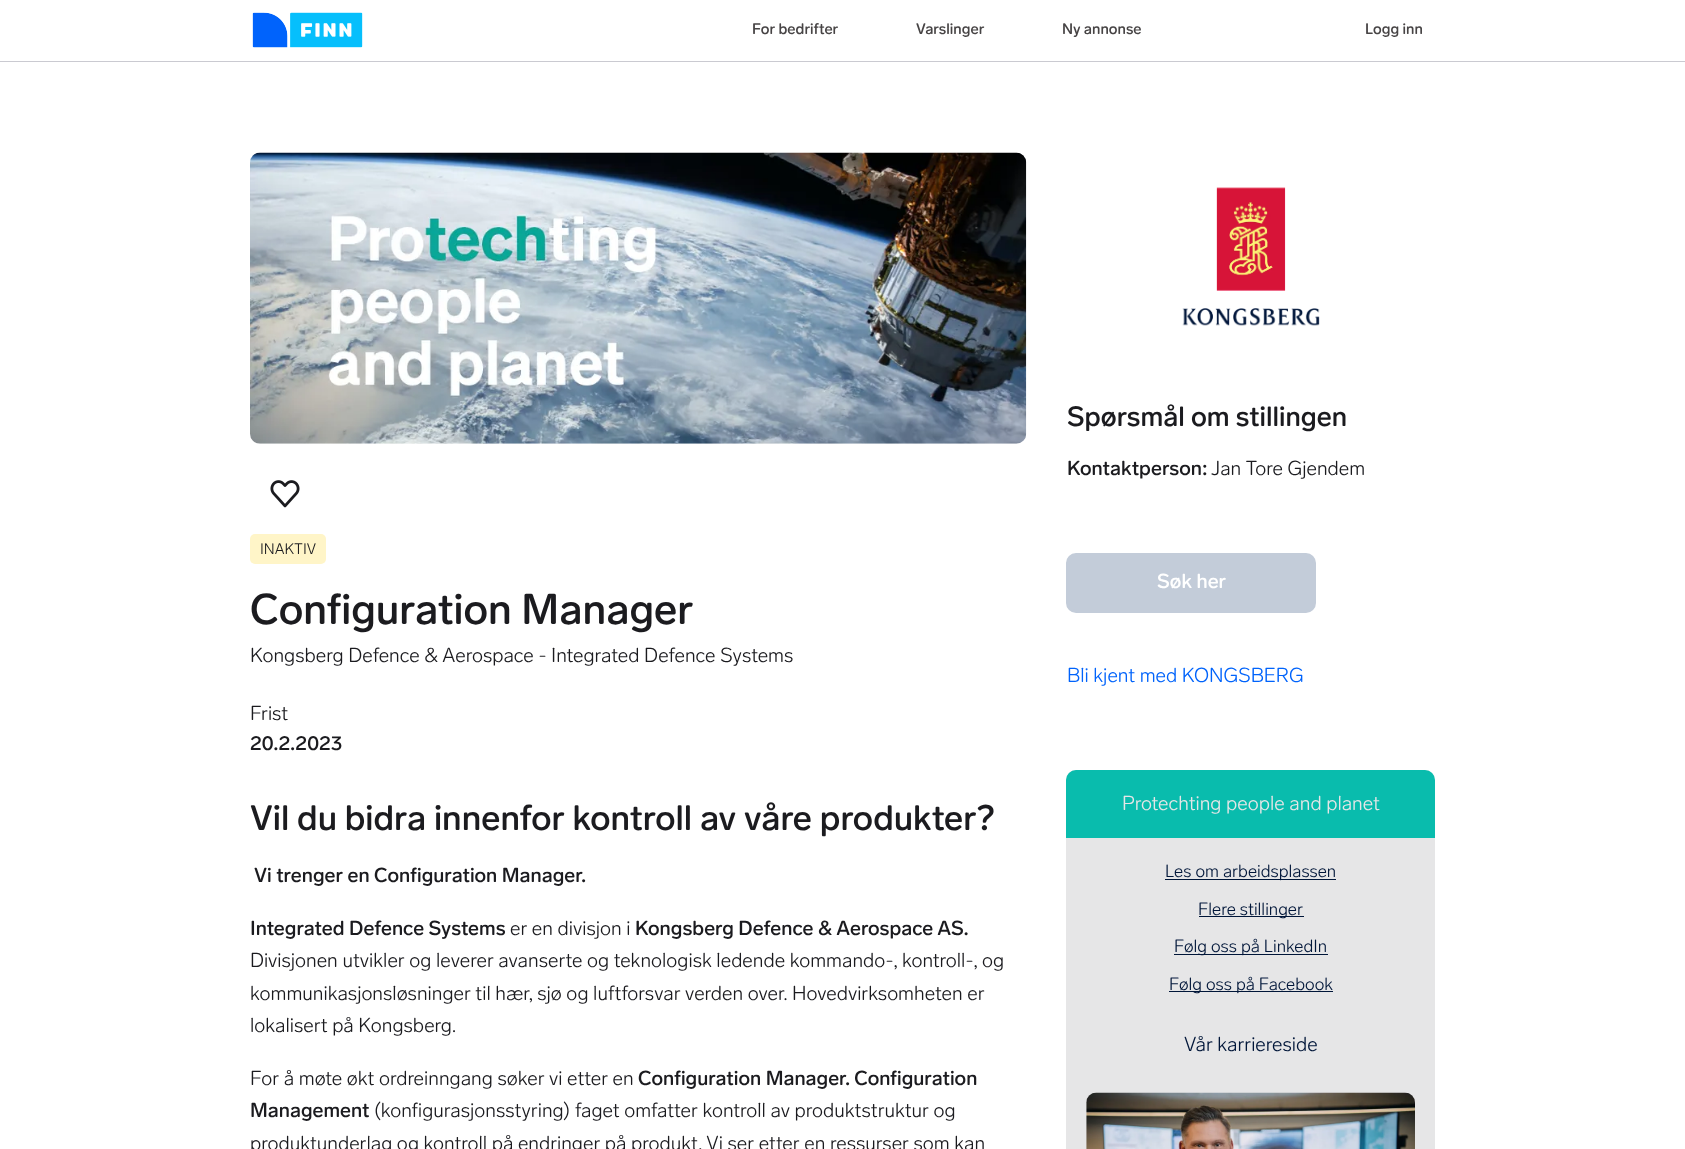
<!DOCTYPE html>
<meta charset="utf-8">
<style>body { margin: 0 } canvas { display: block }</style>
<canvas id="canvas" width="1685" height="1149"></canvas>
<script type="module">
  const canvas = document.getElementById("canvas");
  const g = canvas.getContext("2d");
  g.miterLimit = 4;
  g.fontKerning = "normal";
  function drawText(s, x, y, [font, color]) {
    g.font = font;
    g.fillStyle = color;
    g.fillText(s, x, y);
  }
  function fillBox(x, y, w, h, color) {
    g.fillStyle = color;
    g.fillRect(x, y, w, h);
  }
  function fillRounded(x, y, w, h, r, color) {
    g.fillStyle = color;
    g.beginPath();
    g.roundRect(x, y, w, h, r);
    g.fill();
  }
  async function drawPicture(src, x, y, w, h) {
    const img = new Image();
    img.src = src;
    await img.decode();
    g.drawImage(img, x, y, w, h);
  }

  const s1 = ["500 15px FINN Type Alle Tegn", "#474445"];
  const s2 = ["300 15px FINN Type Alle Tegn", "#1B1B1F"];
  const s3 = ["500 42.5px FINN Type Alle Tegn", "#1B1B1F"];
  const s4 = ["300 20px FINN Type Alle Tegn", "#1B1B1F"];
  const s5 = ["500 20px FINN Type Alle Tegn", "#1B1B1F"];
  const s6 = ["500 35px FINN Type Alle Tegn", "#1B1B1F"];
  const s7 = ["500 27.5px FINN Type Alle Tegn", "#1B1B1F"];
  const s8 = ["500 20px FINN Type Alle Tegn", "#FFFFFF"];
  const s9 = ["300 20px FINN Type Alle Tegn", "#0063FB"];
  const s10 = ["300 20px FINN Type Alle Tegn", "#E6E6E7"];
  const s11 = ["300 17.5px FINN Type Alle Tegn", "#001639"];
  const s12 = ["300 20px FINN Type Alle Tegn", "#001639"];

  fillBox(0, 0, 1685, 1149, "#FFFFFF");
  fillBox(0, 61, 1685, 1, "#CACAD1");
  await drawPicture("pic1.png", 252, 12, 111, 36);
  drawText("For bedrifter", 752, 34, s1);
  drawText("Varslinger", 916, 34, s1);
  drawText("Ny annonse", 1062, 34, s1);
  drawText("Logg inn", 1365, 34, s1);
  await drawPicture("pic2.png", 250, 152, 777, 292);
  await drawPicture("pic3.png", 270, 480, 30, 28);
  fillRounded(250, 534, 76, 30, 5, "#FFF5C8");
  drawText("INAKTIV", 260, 554, s2);
  drawText("Configuration Manager", 250, 624, s3);
  drawText("Kongsberg Defence & Aerospace - Integrated Defence Systems", 250, 662, s4);
  drawText("Frist", 250, 720, s4);
  drawText("20.2.2023", 250, 750, s5);
  drawText("Vil du bidra innenfor kontroll av våre produkter?", 250, 830, s6);
  drawText("Vi trenger en Configuration Manager.", 254, 882, s5);
  drawText("Integrated Defence Systems", 250, 935, s5);
  drawText("er en divisjon i", 510, 935, s4);
  drawText("Kongsberg Defence & Aerospace AS.", 635, 935, s5);
  drawText("Divisjonen utvikler og leverer avanserte og teknologisk ledende kommando-, kontroll-, og", 250, 967, s4);
  drawText("kommunikasjonsløsninger til hær, sjø og luftforsvar verden over. Hovedvirksomheten er", 250, 1000, s4);
  drawText("lokalisert på Kongsberg.", 250, 1032, s4);
  drawText("For å møte økt ordreinngang søker vi etter en", 250, 1085, s4);
  drawText("Configuration Manager. Configuration", 638, 1085, s5);
  drawText("Management", 250, 1117, s5);
  drawText("(konfigurasjonsstyring) faget omfatter kontroll av produktstruktur og", 374, 1117, s4);
  drawText("produktunderlag og kontroll på endringer på produkt. Vi ser etter en ressurser som kan", 250, 1150, s4);
  await drawPicture("pic4.png", 1182, 187, 138, 139);
  drawText("Spørsmål om stillingen", 1067, 426, s7);
  drawText("Kontaktperson:", 1067, 475, s5);
  drawText("Jan Tore Gjendem", 1211, 475, s4);
  g.fillStyle = "#C3CCD9";
  g.beginPath();
  g.roundRect(1067.5, 554.5, 247, 57, 8.5);
  g.fill();
  g.strokeStyle = "#C3CCD9";
  g.lineWidth = 3;
  g.stroke();
  drawText("Søk her", 1157, 588, s8);
  drawText("Bli kjent med KONGSBERG", 1067, 682, s9);
  fillRounded(1066, 770, 369, 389, 10, "#E6E6E7");
  g.fillStyle = "#09BCAD";
  g.beginPath();
  g.roundRect(1066, 770, 369, 68, [10, 10, 0, 0]);
  g.fill();
  drawText("Protechting people and planet", 1122, 810, s10);
  fillBox(1165, 879, 171, 1, "#001639");
  drawText("Les om arbeidsplassen", 1165, 877, s11);
  fillBox(1199, 916, 105, 1, "#001639");
  drawText("Flere stillinger", 1198, 915, s11);
  fillBox(1174, 954, 154, 1, "#001639");
  drawText("Følg oss på LinkedIn", 1174, 952, s11);
  fillBox(1169, 991, 164, 1, "#001639");
  drawText("Følg oss på Facebook", 1169, 990, s11);
  drawText("Vår karriereside", 1184, 1051, s12);
  await drawPicture("pic5.png", 1086, 1092, 329, 57);
</script>
